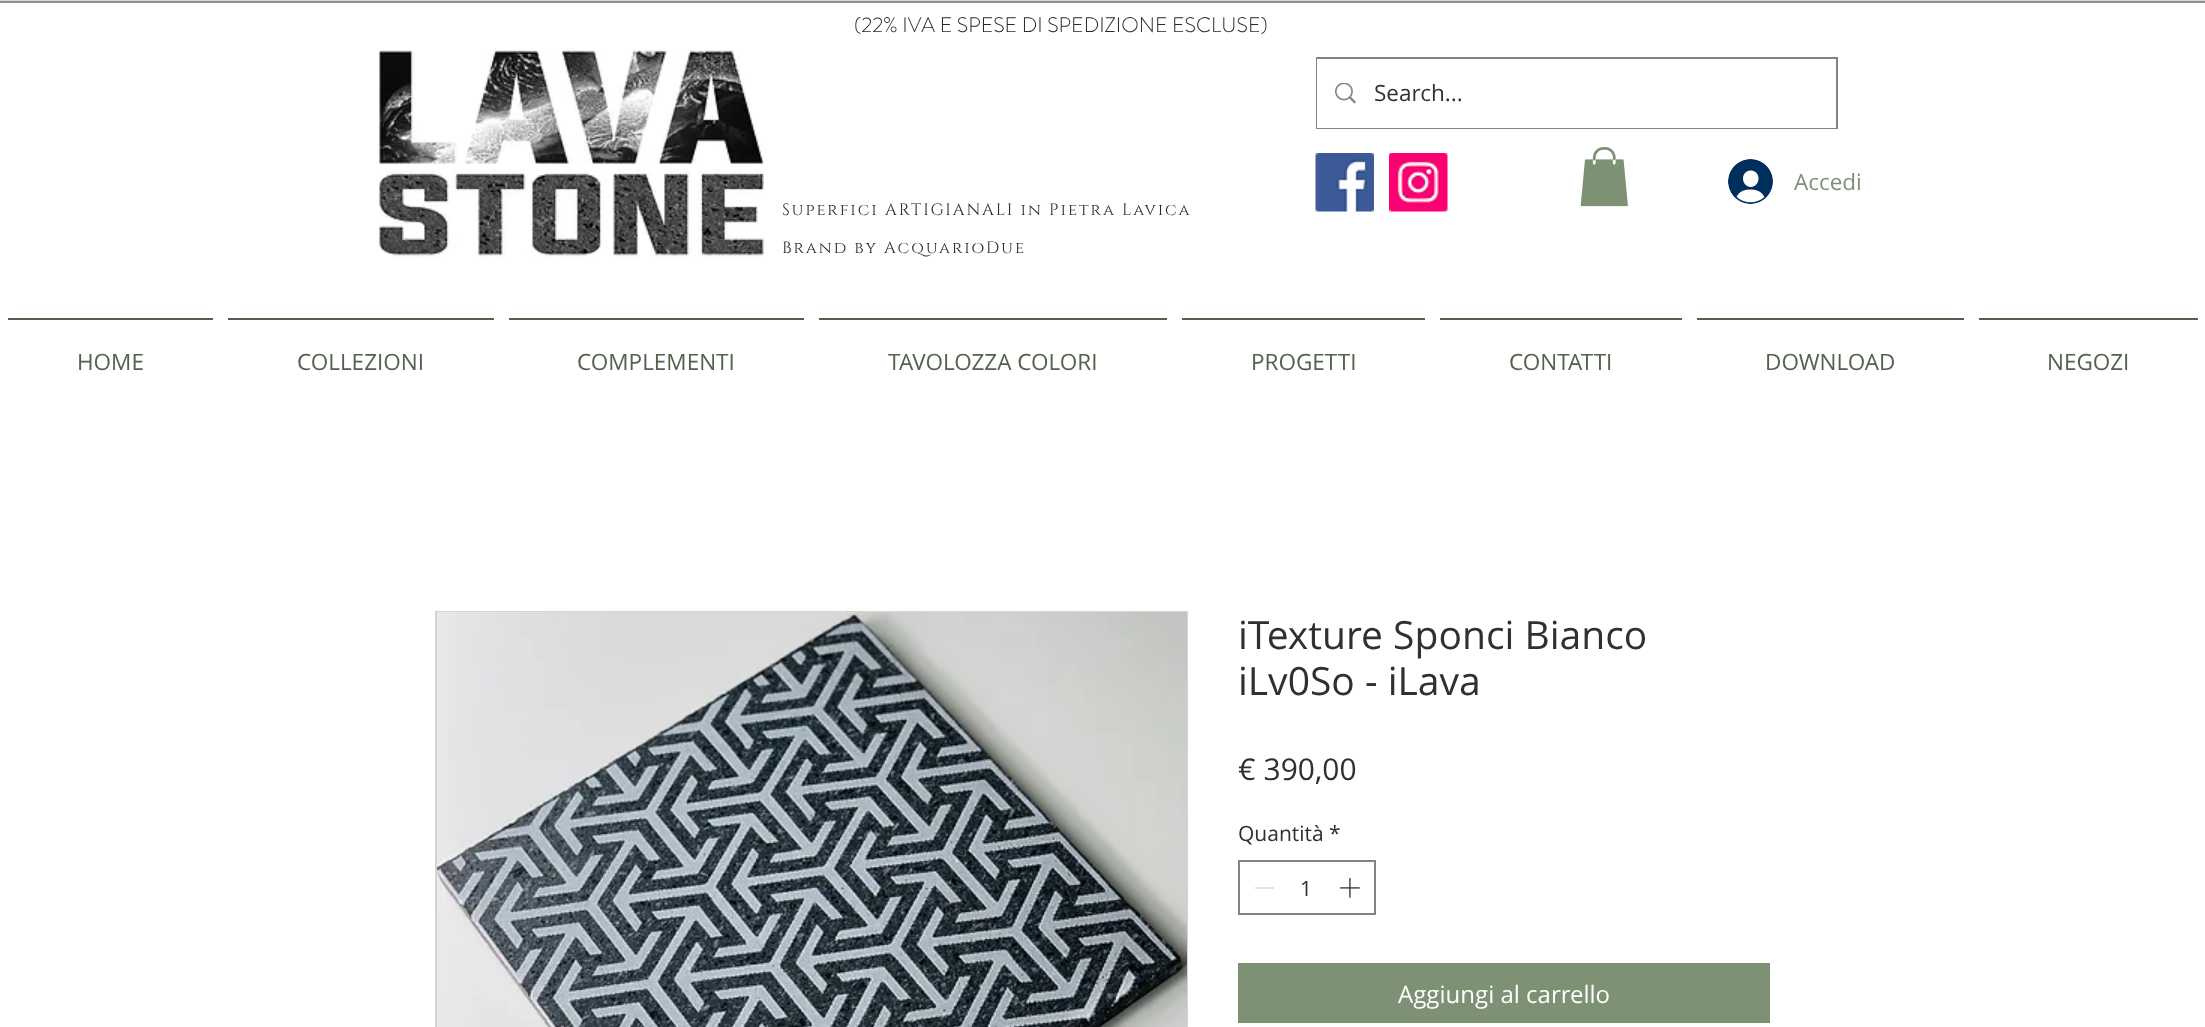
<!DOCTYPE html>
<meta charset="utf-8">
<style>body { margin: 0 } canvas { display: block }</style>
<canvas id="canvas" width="2205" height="1027"></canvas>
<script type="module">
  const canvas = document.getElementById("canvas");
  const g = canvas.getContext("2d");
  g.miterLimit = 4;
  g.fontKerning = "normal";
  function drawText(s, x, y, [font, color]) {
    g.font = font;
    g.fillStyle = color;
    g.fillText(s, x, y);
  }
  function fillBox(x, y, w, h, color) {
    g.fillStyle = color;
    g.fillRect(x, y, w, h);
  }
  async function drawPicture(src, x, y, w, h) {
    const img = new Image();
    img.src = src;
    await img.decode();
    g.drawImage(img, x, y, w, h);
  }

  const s1 = ["300 21px 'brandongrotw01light'", "#292929"];
  const s2 = ["22.5px Open Sans", "#303030"];
  const s3 = ["22.5px Open Sans", "#7D9174"];
  const s4 = ["16.5px Cinzel", "#292929"];
  const s5 = ["22.5px Open Sans", "#53614D"];
  const s6 = ["39px Open Sans", "#303030"];
  const s7 = ["30px Open Sans", "#303030"];
  const s8 = ["21px Open Sans", "#303030"];
  const s9 = ["24px Open Sans", "#FFFFFF"];

  fillBox(0, 0, 2205, 1027, "#FFFFFF");
  g.fillStyle = "#D4D4D4";
  g.beginPath();
  g.rect(-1, -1, 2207, 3);
  g.fill();
  g.strokeStyle = "#909090";
  g.lineWidth = 2;
  g.stroke();
  drawText("(22% IVA E SPESE DI SPEDIZIONE ESCLUSE)", 854, 32, s1);
  await drawPicture("pic1.png", 379, 50, 385, 209);
  g.strokeStyle = "#838383";
  g.strokeRect(1317, 58, 520, 70);
  fillBox(1317, 59, 519, 69, "#FFFFFF");
  await drawPicture("pic2.png", 1335, 83, 21, 21);
  drawText("Search...", 1374, 101, s2);
  await drawPicture("pic3.png", 1315, 153, 59, 59);
  await drawPicture("pic4.png", 1389, 153, 59, 59);
  await drawPicture("pic5.png", 1728, 159, 45, 45);
  drawText("Accedi", 1794, 190, s3);
  await drawPicture("pic6.png", 1580, 147, 48, 60);
  g.letterSpacing = "2px";
  drawText("Superfici ARTIGIANALI in Pietra Lavica", 782, 215, s4);
  drawText("Brand by AcquarioDue", 782, 253, s4);
  fillBox(8, 318, 205, 2, "#53614D");
  g.letterSpacing = "0px";
  drawText("HOME", 77, 370, s5);
  fillBox(228, 318, 266, 2, "#53614D");
  drawText("COLLEZIONI", 297, 370, s5);
  fillBox(509, 318, 295, 2, "#53614D");
  drawText("COMPLEMENTI", 577, 370, s5);
  fillBox(819, 318, 348, 2, "#53614D");
  drawText("TAVOLOZZA COLORI", 888, 370, s5);
  fillBox(1182, 318, 243, 2, "#53614D");
  drawText("PROGETTI", 1251, 370, s5);
  fillBox(1440, 318, 242, 2, "#53614D");
  drawText("CONTATTI", 1509, 370, s5);
  fillBox(1697, 318, 267, 2, "#53614D");
  drawText("DOWNLOAD", 1765, 370, s5);
  fillBox(1979, 318, 219, 2, "#53614D");
  drawText("NEGOZI", 2047, 370, s5);
  g.strokeStyle = "#D4D4D4";
  g.strokeRect(436, 612, 751, 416);
  await drawPicture("pic7.png", 437, 612, 750, 415);
  drawText("iTexture Sponci Bianco", 1238, 649, s6);
  drawText("iLv0So - iLava", 1238, 695, s6);
  drawText("€ 390,00", 1238, 780, s7);
  drawText("Quantità", 1238, 841, s8);
  drawText("*", 1329, 841, s8);
  g.strokeStyle = "#838383";
  g.strokeRect(1239, 861, 136, 53);
  fillBox(1255, 887, 19, 2, "#E3E3E3");
  drawText("1", 1300, 896, s8);
  await drawPicture("pic8.png", 1340, 878, 20, 20);
  fillBox(1238, 963, 532, 60, "#7D9174");
  drawText("Aggiungi al carrello", 1398, 1003, s9);
</script>
